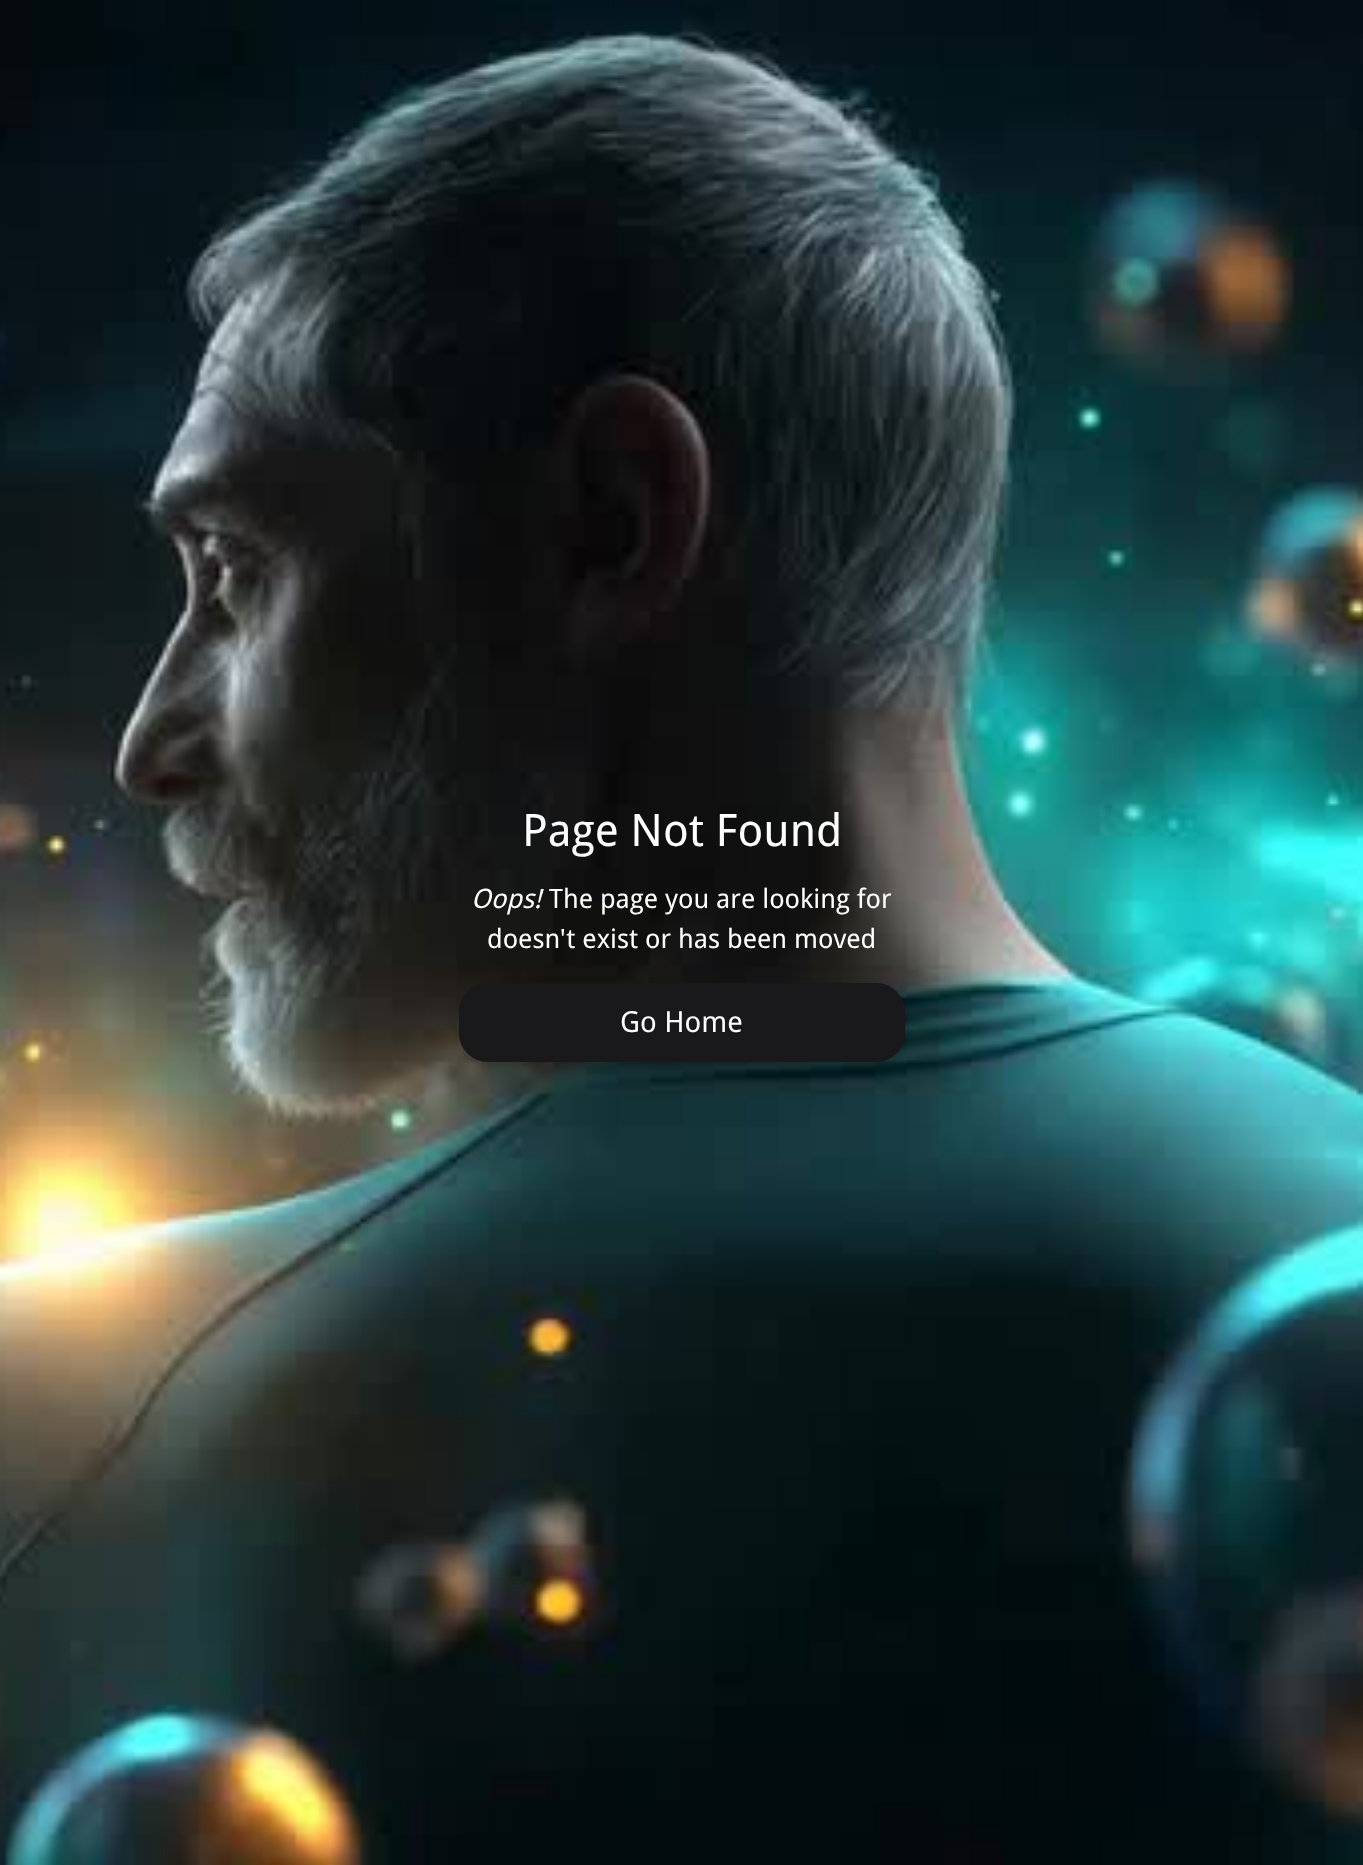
<!DOCTYPE html>
<meta charset="utf-8">
<style>body { margin: 0 } canvas { display: block }</style>
<canvas id="canvas" width="1363" height="1865"></canvas>
<script type="module">
  const canvas = document.getElementById("canvas");
  const g = canvas.getContext("2d");
  g.miterLimit = 4;
  g.fontKerning = "normal";
  function drawText(s, x, y, [font, color]) {
    g.font = font;
    g.fillStyle = color;
    g.fillText(s, x, y);
  }
  function fillBox(x, y, w, h, color) {
    g.fillStyle = color;
    g.fillRect(x, y, w, h);
  }
  async function drawPicture(src, x, y, w, h) {
    const img = new Image();
    img.src = src;
    await img.decode();
    g.drawImage(img, x, y, w, h);
  }

  const s1 = ["44.75px Droid Sans", "#FFFFFF"];
  const s2 = ["italic 26.75px Droid Sans", "#FFFFFF"];
  const s3 = ["26.75px Droid Sans", "#FFFFFF"];
  const s4 = ["29px Droid Sans", "#FFFFFF"];

  fillBox(0, 0, 1363, 1865, "#FFFFFF");
  await drawPicture("pic1.png", 0, 0, 1363, 1865);
  drawText("Page Not Found", 522, 846, s1);
  drawText("Oops!", 471, 908, s2);
  drawText("The page you are looking for", 549, 908, s3);
  drawText("doesn't exist or has been moved", 487, 948, s3);
  g.fillStyle = "rgba(0, 0, 0, 0.2)";
  g.filter = "blur(4px)";
  g.beginPath();
  g.roundRect(459, 986, 446, 79, 29);
  g.fill();
  g.filter = "none";
  g.fillStyle = "#19181B";
  g.beginPath();
  g.roundRect(460.5, 984.5, 443, 76, 27.5);
  g.fill();
  g.strokeStyle = "#19181B";
  g.lineWidth = 3;
  g.stroke();
  drawText("Go Home", 620, 1032, s4);
</script>
